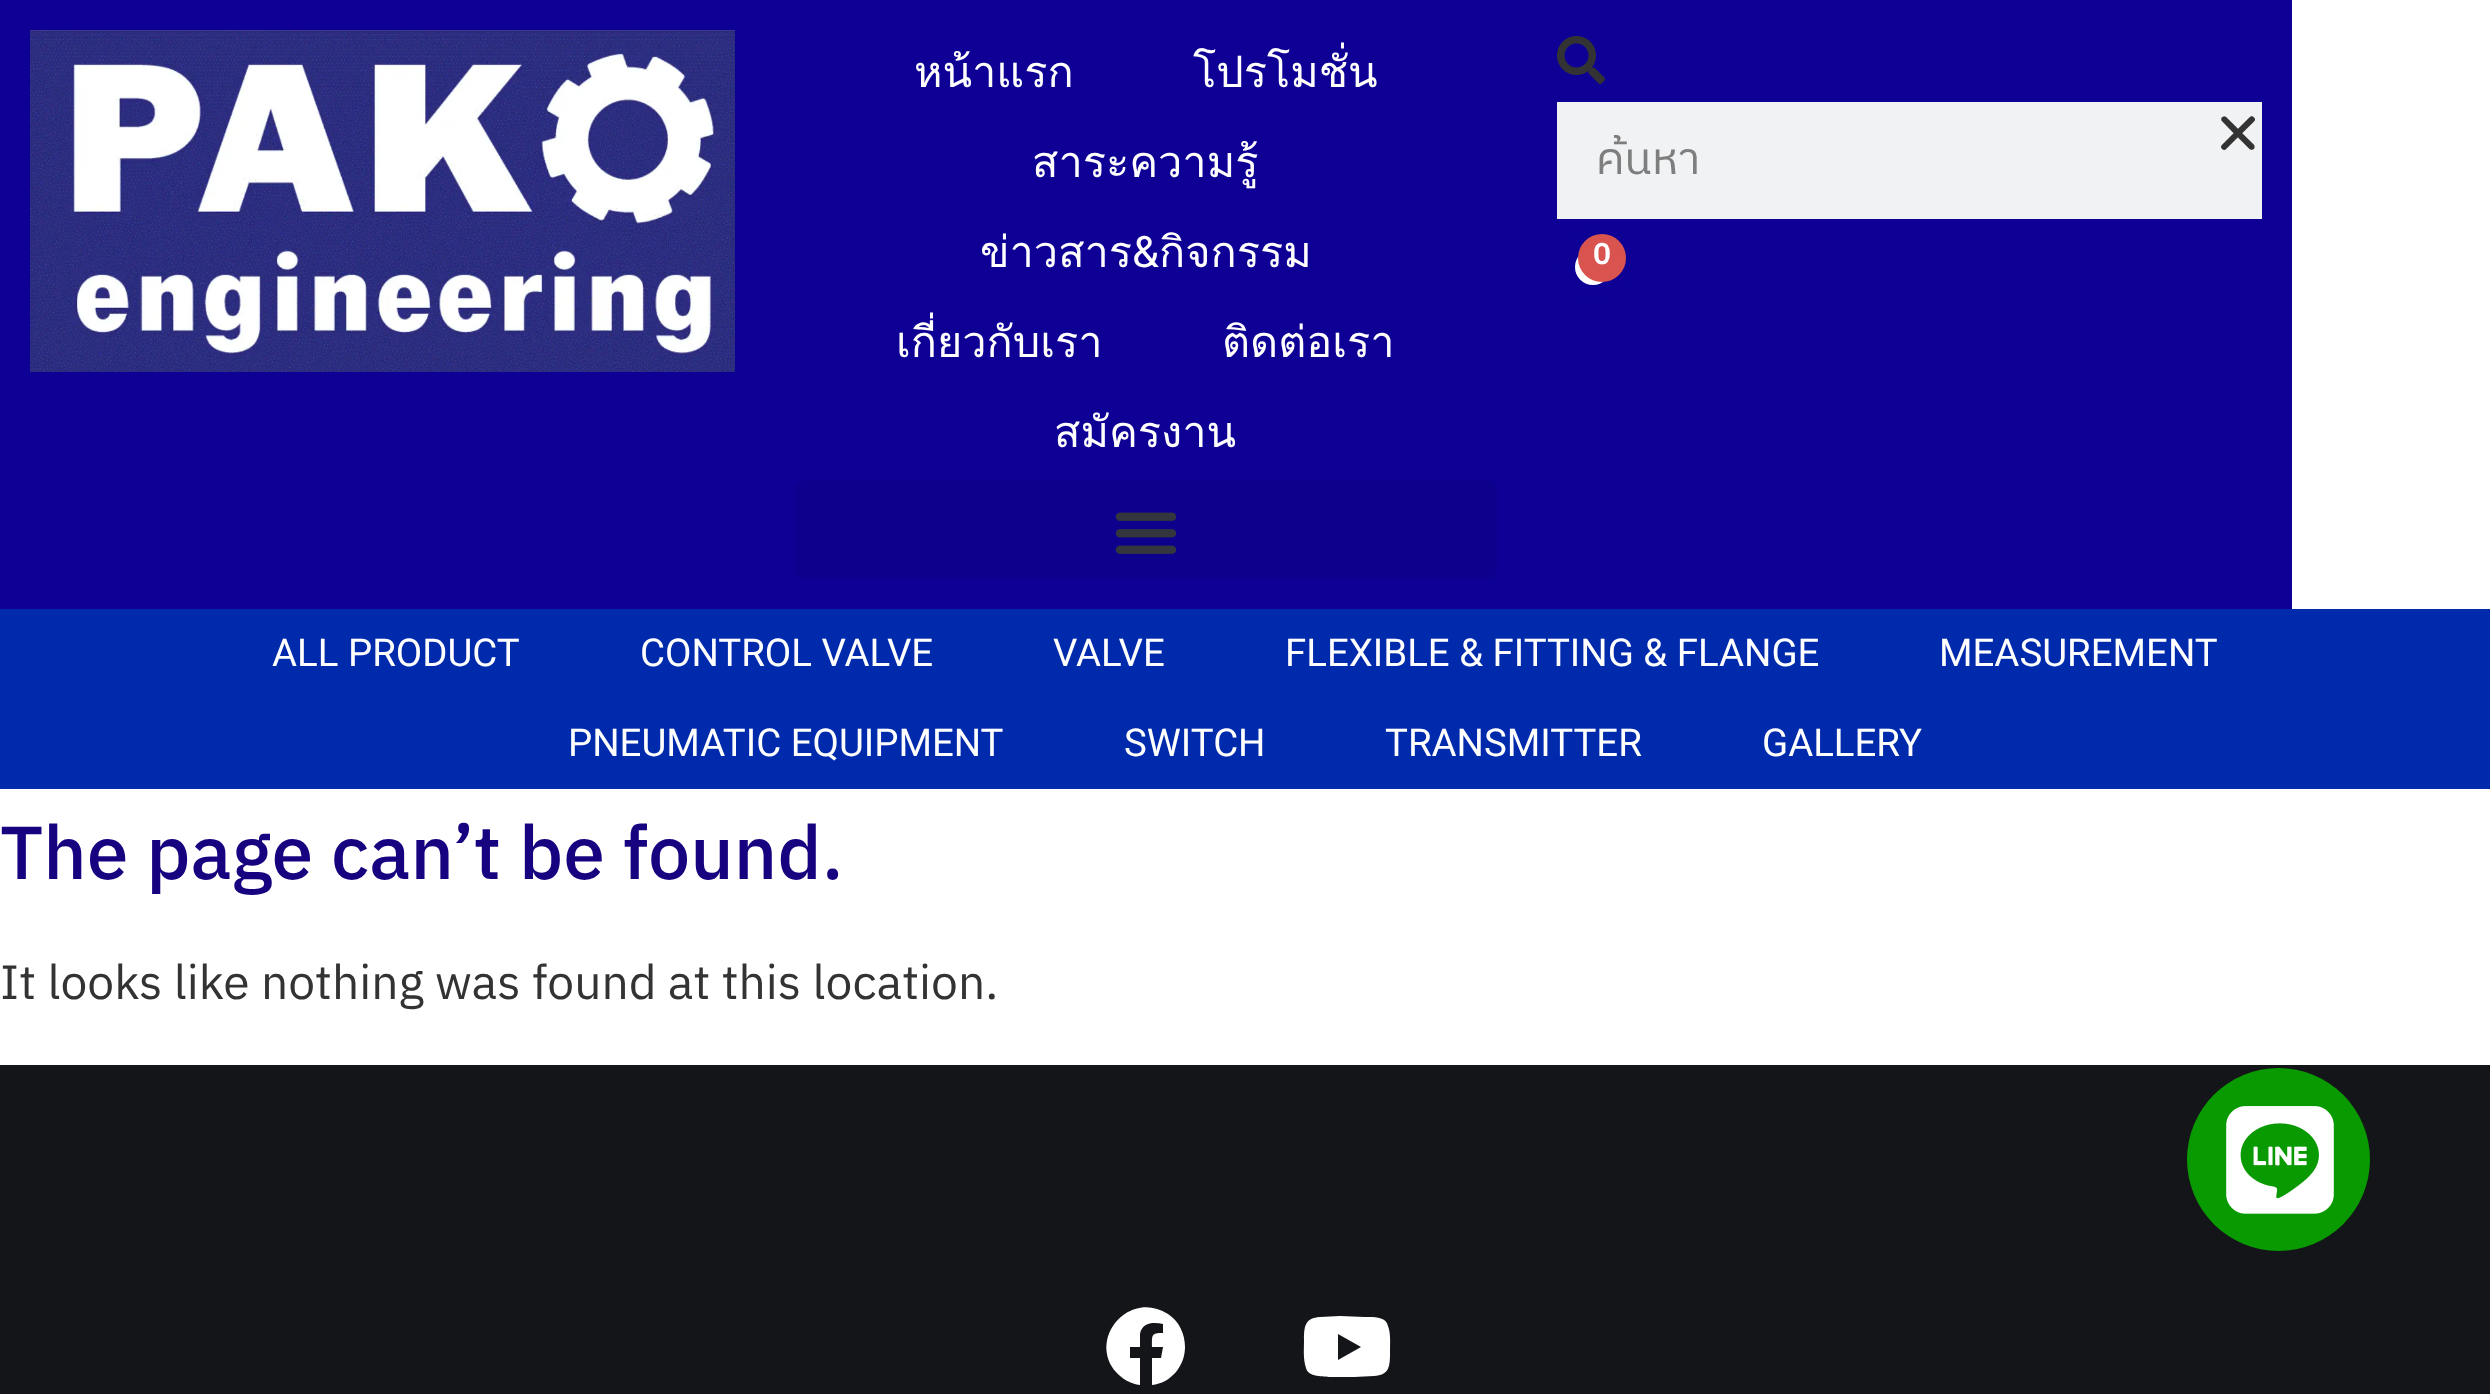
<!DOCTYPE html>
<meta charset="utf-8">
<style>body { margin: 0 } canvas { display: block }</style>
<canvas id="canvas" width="2490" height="1394"></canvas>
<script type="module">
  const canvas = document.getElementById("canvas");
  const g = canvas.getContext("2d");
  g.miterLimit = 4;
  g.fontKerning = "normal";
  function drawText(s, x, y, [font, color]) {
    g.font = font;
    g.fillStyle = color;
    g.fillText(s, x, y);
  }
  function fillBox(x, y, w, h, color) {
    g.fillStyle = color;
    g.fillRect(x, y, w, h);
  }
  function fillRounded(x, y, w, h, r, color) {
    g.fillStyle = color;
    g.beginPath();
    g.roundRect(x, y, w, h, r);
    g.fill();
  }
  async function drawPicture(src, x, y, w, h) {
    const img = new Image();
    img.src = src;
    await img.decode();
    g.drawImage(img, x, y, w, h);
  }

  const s1 = ["43.25px Loma", "#FFFFFF"];
  const s2 = ["43.25px Roboto", "#FFFFFF"];
  const s3 = ["45px IBM Plex Sans Thai", "#7E7E7F"];
  const s4 = ["600 30px IBM Plex Sans Thai", "#FFFFFF"];
  const s5 = ["38.4px Roboto", "#FFFFFF"];
  const s6 = ["500 75px IBM Plex Sans Thai", "#170380"];
  const s7 = ["48px IBM Plex Sans Thai", "#333333"];

  fillBox(0, 0, 2490, 1394, "#FFFFFF");
  fillBox(0, 0, 2292, 609, "#0E0094");
  await drawPicture("pic1.png", 30, 30, 705, 342);
  drawText("หน้าแรก", 914, 87, s1);
  drawText("โปรโมชั่น", 1193, 87, s1);
  drawText("สาระความรู้", 1032, 177, s1);
  drawText("ข่าวสาร", 980, 267, s1);
  drawText("&", 1132, 267, s2);
  drawText("กิจกรรม", 1159, 267, s1);
  drawText("เกี่ยวกับเรา", 896, 357, s1);
  drawText("ติดต่อเรา", 1222, 357, s1);
  drawText("สมัครงาน", 1054, 447, s1);
  fillRounded(795, 480, 702, 99, 9, "#0D008D");
  await drawPicture("pic2.png", 1115, 512, 62, 42);
  await drawPicture("pic3.png", 1557, 36, 48, 48);
  fillBox(1557, 102, 705, 117, "#F1F2F3");
  await drawPicture("pic4.png", 2221, 116, 34, 34);
  g.save();
  g.beginPath();
  g.rect(1596, 123, 537, 75);
  g.clip();
  drawText("ค้นหา", 1596, 174, s3);
  g.restore();
  g.fillStyle = "#FFFFFF";
  g.beginPath();
  g.arc(1593, 267, 27, 0, Math.PI * 2);
  g.fill();
  g.strokeStyle = "#0E0094";
  g.lineWidth = 18;
  g.stroke();
  g.fillStyle = "#D9534F";
  g.beginPath();
  g.arc(1602, 258, 24, 0, Math.PI * 2);
  g.fill();
  drawText("0", 1593, 264, s4);
  fillBox(0, 609, 2490, 180, "#002AAC");
  drawText("ALL PRODUCT", 272, 666, s5);
  drawText("CONTROL VALVE", 640, 666, s5);
  drawText("VALVE", 1053, 666, s5);
  drawText("FLEXIBLE & FITTING & FLANGE", 1285, 666, s5);
  drawText("MEASUREMENT", 1939, 666, s5);
  drawText("PNEUMATIC EQUIPMENT", 568, 756, s5);
  drawText("SWITCH", 1124, 756, s5);
  drawText("TRANSMITTER", 1385, 756, s5);
  drawText("GALLERY", 1762, 756, s5);
  drawText("The page can’t be found.", 0, 879, s6);
  drawText("It looks like nothing was found at this location.", 0, 999, s7);
  fillBox(0, 1065, 2490, 329, "#141519");
  g.fillStyle = "#099900";
  g.beginPath();
  g.arc(2278.5, 1159.5, 91.5, 0, Math.PI * 2);
  g.fill();
  await drawPicture("pic5.png", 2226, 1106, 108, 108);
  g.fillStyle = "#FFFFFF";
  g.beginPath();
  g.moveTo(1185, 1347);
  g.bezierCurveTo(1185, 1366, 1171, 1383, 1152, 1385);
  g.lineTo(1152, 1358);
  g.lineTo(1161, 1358);
  g.lineTo(1163, 1347);
  g.lineTo(1152, 1347);
  g.bezierCurveTo(1152, 1335, 1151, 1333, 1163, 1333);
  g.lineTo(1163, 1324);
  g.bezierCurveTo(1154, 1322, 1142, 1322, 1140, 1334);
  g.lineTo(1140, 1347);
  g.lineTo(1130, 1347);
  g.lineTo(1130, 1358);
  g.lineTo(1140, 1358);
  g.lineTo(1140, 1385);
  g.bezierCurveTo(1131, 1384, 1122, 1379, 1116, 1372);
  g.bezierCurveTo(1087, 1338, 1130, 1289, 1168, 1314);
  g.bezierCurveTo(1179, 1321, 1185, 1334, 1185, 1347);
  g.closePath();
  g.fill();
  g.beginPath();
  g.moveTo(1388, 1326);
  g.bezierCurveTo(1391, 1334, 1390, 1344, 1390, 1353);
  g.bezierCurveTo(1390, 1367, 1389, 1375, 1374, 1376);
  g.lineTo(1354, 1377);
  g.lineTo(1329, 1377);
  g.bezierCurveTo(1321, 1376, 1308, 1377, 1306, 1368);
  g.bezierCurveTo(1303, 1359, 1304, 1349, 1304, 1340);
  g.bezierCurveTo(1304, 1326, 1305, 1318, 1320, 1317);
  g.lineTo(1340, 1316);
  g.lineTo(1365, 1317);
  g.bezierCurveTo(1373, 1317, 1386, 1316, 1388, 1326);
  g.closePath();
  g.moveTo(1338, 1360);
  g.lineTo(1361, 1347);
  g.lineTo(1338, 1334);
  g.closePath();
  g.fill();
</script>
